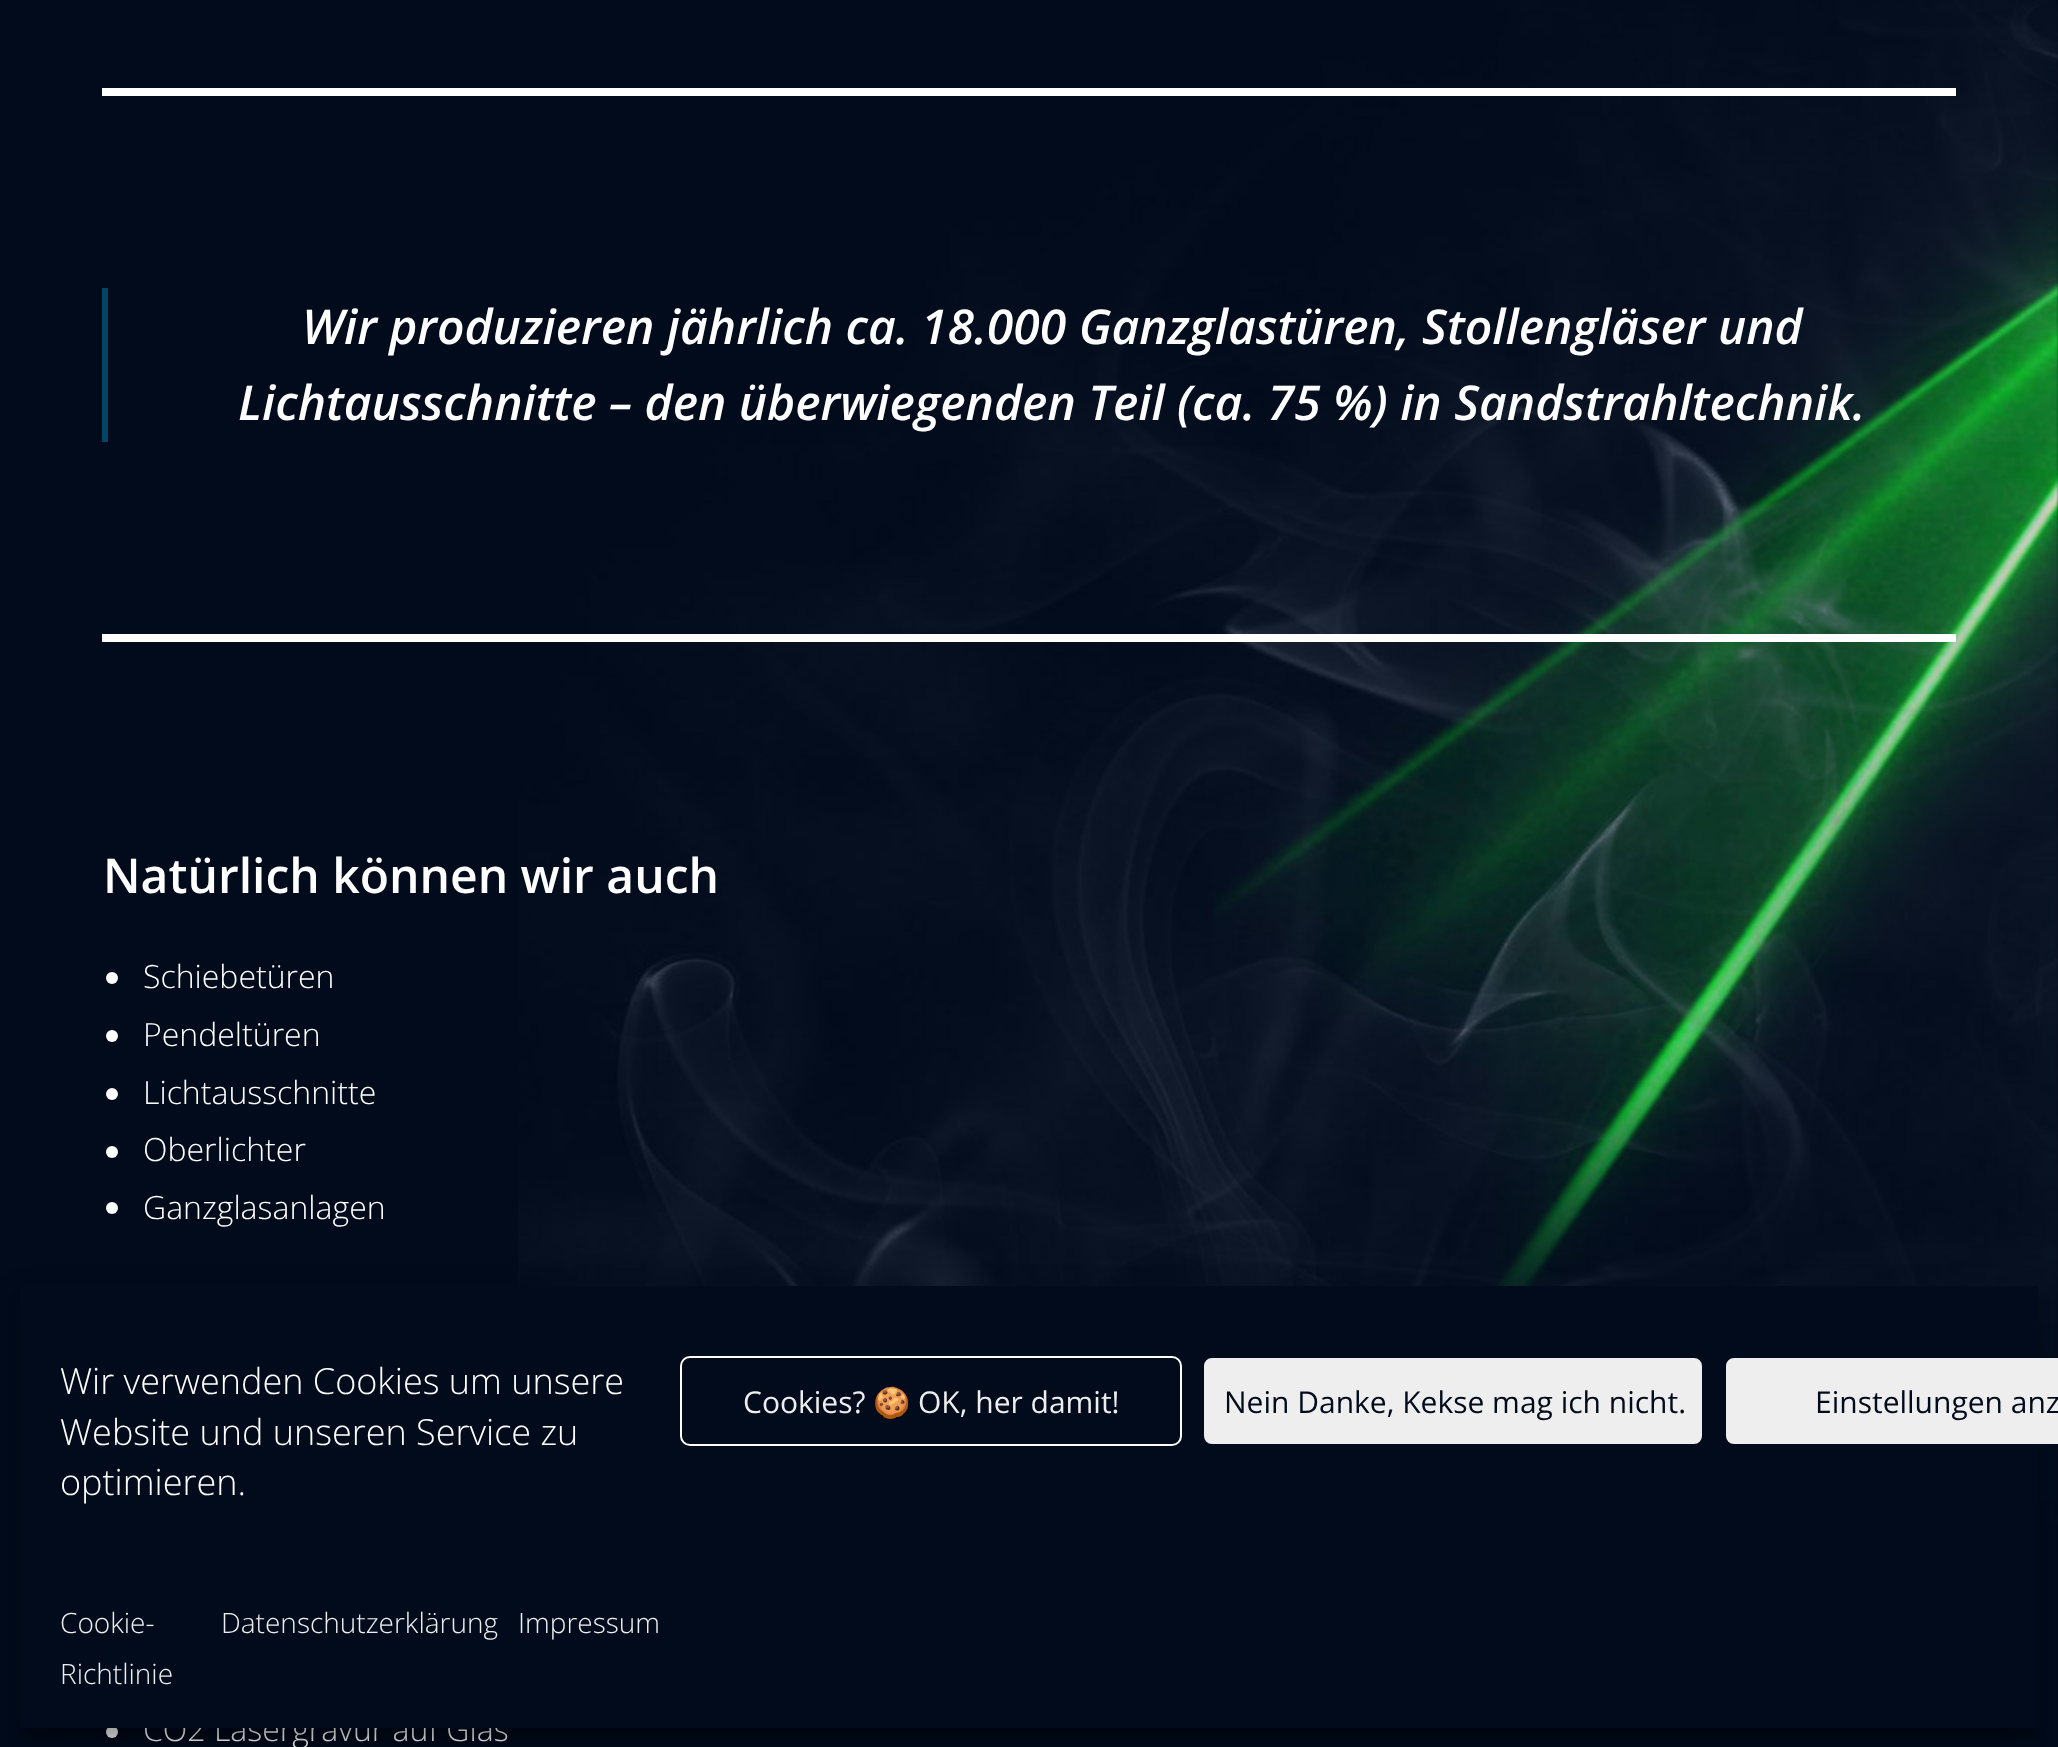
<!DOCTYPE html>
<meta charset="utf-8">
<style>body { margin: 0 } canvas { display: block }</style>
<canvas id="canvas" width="2058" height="1747"></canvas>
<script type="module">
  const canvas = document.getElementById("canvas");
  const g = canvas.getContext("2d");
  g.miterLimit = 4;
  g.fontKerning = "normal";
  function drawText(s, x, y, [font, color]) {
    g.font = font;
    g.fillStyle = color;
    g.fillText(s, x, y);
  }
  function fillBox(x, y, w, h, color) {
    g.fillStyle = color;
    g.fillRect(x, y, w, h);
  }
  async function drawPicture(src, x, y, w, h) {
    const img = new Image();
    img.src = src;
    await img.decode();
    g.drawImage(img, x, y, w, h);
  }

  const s1 = ["italic 600 48px Open Sans", "#FFFFFF"];
  const s2 = ["600 48px Open Sans", "#FFFFFF"];
  const s3 = ["300 32px Open Sans", "#FFFFFF"];
  const s4 = ["300 36px Open Sans", "#FFFFFF"];
  const s5 = ["30px Open Sans", "#EEEEEE"];
  const s6 = ["30px Noto Color Emoji", "#EEEEEE"];
  const s7 = ["30px Open Sans", "#020B1C"];
  const s8 = ["300 28px Open Sans", "#EEEEEE"];

  fillBox(0, 0, 2058, 1747, "#020B1C");
  await drawPicture("pic1.png", 518, 0, 1540, 1551);
  fillBox(102, 88, 1854, 8, "#FFFFFF");
  fillBox(102, 634, 1854, 8, "#FFFFFF");
  fillBox(102, 288, 6, 154, "#004563");
  drawText("Wir produzieren jährlich ca. 18.000 Ganzglastüren, Stollengläser und", 302, 344, s1);
  drawText("Lichtausschnitte – den überwiegenden Teil (ca. 75 %) in Sandstrahltechnik.", 238, 420, s1);
  drawText("Natürlich können wir auch", 103, 893, s2);
  g.beginPath();
  g.arc(112, 978, 6, 0, Math.PI * 2);
  g.fill();
  drawText("Schiebetüren", 143, 988, s3);
  g.beginPath();
  g.arc(112, 1036, 6, 0, Math.PI * 2);
  g.fill();
  drawText("Pendeltüren", 143, 1046, s3);
  g.beginPath();
  g.arc(112, 1094, 6, 0, Math.PI * 2);
  g.fill();
  drawText("Lichtausschnitte", 143, 1104, s3);
  g.beginPath();
  g.arc(112, 1152, 6, 0, Math.PI * 2);
  g.fill();
  drawText("Oberlichter", 143, 1161, s3);
  g.beginPath();
  g.arc(112, 1208, 6, 0, Math.PI * 2);
  g.fill();
  drawText("Ganzglasanlagen", 143, 1219, s3);
  g.beginPath();
  g.arc(112, 1732, 6, 0, Math.PI * 2);
  g.fill();
  drawText("CO2 Lasergravur auf Glas", 143, 1741, s3);
  g.fillStyle = "rgba(0, 0, 0, 0.23)";
  g.filter = "blur(6px)";
  g.beginPath();
  g.rect(20, 1298, 2018, 442);
  g.fill();
  g.filter = "none";
  g.fillStyle = "rgba(0, 0, 0, 0.19)";
  g.filter = "blur(20px)";
  g.beginPath();
  g.rect(20, 1306, 2018, 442);
  g.fill();
  g.filter = "none";
  fillBox(20, 1286, 2018, 442, "#020B1C");
  drawText("Wir verwenden Cookies um unsere", 60, 1394, s4);
  drawText("Website und unseren Service zu", 60, 1445, s4);
  drawText("optimieren.", 60, 1495, s4);
  g.beginPath();
  g.roundRect(681, 1357, 500, 88, 9);
  g.strokeStyle = "#FFFFFF";
  g.lineWidth = 2;
  g.stroke();
  drawText("Cookies?", 743, 1413, s5);
  drawText("🍪", 873, 1413, s6);
  drawText("OK, her damit!", 918, 1413, s5);
  g.beginPath();
  g.roundRect(1203, 1357, 500, 88, 9);
  g.fill();
  g.strokeStyle = "#020B1C";
  g.stroke();
  drawText("Nein Danke, Kekse mag ich nicht.", 1224, 1413, s7);
  g.fillStyle = "#EEEEEE";
  g.beginPath();
  g.roundRect(1725, 1357, 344, 88, 9);
  g.fill();
  g.stroke();
  drawText("Einstellungen anz", 1815, 1413, s7);
  drawText("Cookie-", 60, 1633, s8);
  drawText("Richtlinie", 60, 1684, s8);
  drawText("Datenschutzerklärung", 221, 1633, s8);
  drawText("Impressum", 518, 1633, s8);
</script>
